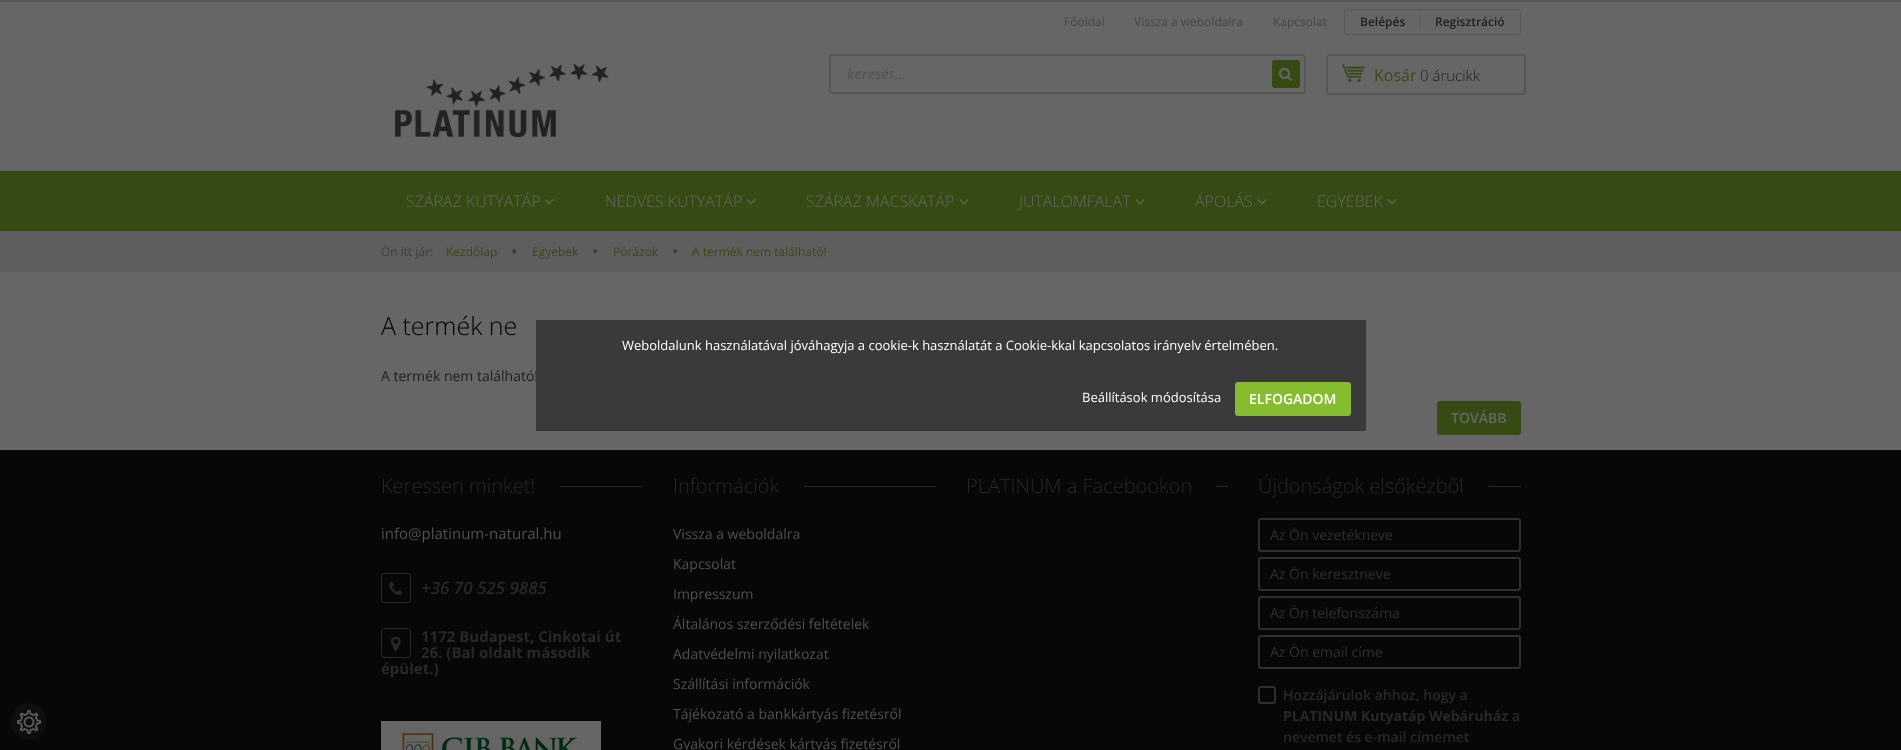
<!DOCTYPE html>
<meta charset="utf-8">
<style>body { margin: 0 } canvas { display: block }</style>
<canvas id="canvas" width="1901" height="750"></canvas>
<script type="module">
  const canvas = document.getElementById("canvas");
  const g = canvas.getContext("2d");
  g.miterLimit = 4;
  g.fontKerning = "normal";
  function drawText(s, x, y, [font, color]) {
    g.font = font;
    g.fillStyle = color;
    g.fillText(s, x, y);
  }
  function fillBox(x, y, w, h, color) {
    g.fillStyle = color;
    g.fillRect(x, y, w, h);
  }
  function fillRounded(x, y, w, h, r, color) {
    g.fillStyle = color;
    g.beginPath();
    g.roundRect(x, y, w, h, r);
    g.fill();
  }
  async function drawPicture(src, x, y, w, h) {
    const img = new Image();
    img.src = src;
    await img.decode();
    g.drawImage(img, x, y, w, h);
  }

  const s1 = ["12px Open Sans", "#464645"];
  const s2 = ["600 12px Open Sans", "#1E1E1E"];
  const s3 = ["italic 600 14px Open Sans", "#565655"];
  const s4 = ["16px Open Sans", "#354B13"];
  const s5 = ["300 15px Open Sans", "#1E1E1E"];
  const s6 = ["300 16px Open Sans", "#666666"];
  const s7 = ["12px Open Sans", "#3E3E3E"];
  const s8 = ["12px Open Sans", "#354B13"];
  const s9 = ["300 25px Open Sans", "#000000"];
  const s10 = ["14px Open Sans", "#1E1E1E"];
  const s11 = ["600 14px Open Sans", "#666666"];
  const s12 = ["300 20px Open Sans", "#282828"];
  const s13 = ["15px Open Sans", "#505050"];
  const s14 = ["italic 600 17px Open Sans", "#282828"];
  const s15 = ["bold 15px Open Sans", "#282828"];
  const s16 = ["14px Open Sans", "#505050"];
  const s17 = ["14px Open Sans", "#302F2F"];
  const s18 = ["600 14px Open Sans", "#282828"];
  const s19 = ["bold 14px Open Sans", "#282828"];
  const s20 = ["13px Open Sans", "#FFFFFF"];
  const s21 = ["600 14px Open Sans", "#FFFFFF"];

  fillBox(0, 0, 1901, 750, "#666666");
  fillBox(0, 450, 1901, 300, "#080706");
  g.fillStyle = "#0F0E0D";
  g.beginPath();
  g.arc(28.5, 721.5, 18.5, 0, Math.PI * 2);
  g.fill();
  await drawPicture("pic1.png", 17, 710, 24, 24);
  fillBox(0, 0, 1901, 2, "#565656");
  drawText("Főoldal", 1064, 26, s1);
  drawText("Vissza a weboldalra", 1134, 26, s1);
  drawText("Kapcsolat", 1273, 26, s1);
  g.beginPath();
  g.roundRect(1344.5, 9.5, 176, 25, 2.5);
  g.strokeStyle = "#575757";
  g.stroke();
  drawText("Belépés", 1360, 26, s2);
  fillBox(1419, 15, 1, 13, "#575757");
  drawText("Regisztráció", 1435, 26, s2);
  await drawPicture("pic2.png", 394, 64, 215, 74);
  g.beginPath();
  g.roundRect(830, 55, 475, 38, 2);
  g.lineWidth = 2;
  g.stroke();
  drawText("keresés...", 847, 79, s3);
  fillRounded(1272, 60, 28, 28, 3, "#354B13");
  await drawPicture("pic3.png", 1279, 68, 13, 13);
  g.beginPath();
  g.roundRect(1327, 55, 198, 39, 2);
  g.stroke();
  await drawPicture("pic4.png", 1342, 64, 23, 18);
  drawText("Kosár", 1374, 81, s4);
  drawText("0 árucikk", 1420, 81, s5);
  fillBox(0, 171, 1901, 60, "#354B13");
  drawText("SZÁRAZ KUTYATÁP", 406, 207, s6);
  await drawPicture("pic5.png", 544, 199, 10, 6);
  drawText("NEDVES KUTYATÁP", 605, 207, s6);
  await drawPicture("pic5.png", 746, 199, 10, 6);
  drawText("SZÁRAZ MACSKATÁP", 806, 207, s6);
  await drawPicture("pic5.png", 959, 199, 10, 6);
  drawText("JUTALOMFALAT", 1019, 207, s6);
  await drawPicture("pic5.png", 1135, 199, 10, 6);
  drawText("ÁPOLÁS", 1195, 207, s6);
  await drawPicture("pic5.png", 1257, 199, 10, 6);
  drawText("EGYEBEK", 1317, 207, s6);
  await drawPicture("pic5.png", 1387, 199, 10, 6);
  fillBox(0, 231, 1901, 41, "#5E5E5E");
  drawText("Ön itt jár:", 381, 256, s7);
  drawText("Kezdőlap", 446, 256, s8);
  await drawPicture("pic6.png", 512, 249, 5, 5);
  drawText("Egyebek", 532, 256, s8);
  await drawPicture("pic6.png", 593, 249, 5, 5);
  drawText("Pórázok", 613, 256, s8);
  await drawPicture("pic6.png", 673, 249, 5, 5);
  drawText("A termék nem található!", 692, 256, s8);
  drawText("A termék ne", 381, 335, s9);
  drawText("A termék nem található!", 381, 381, s10);
  g.fillStyle = "#354B13";
  g.beginPath();
  g.roundRect(1438, 402, 82, 32, 2);
  g.fill();
  g.strokeStyle = "#354B13";
  g.stroke();
  drawText("TOVÁBB", 1451, 423, s11);
  drawText("Keressen minket!", 381, 493, s12);
  fillBox(560, 486, 83, 1, "#282828");
  drawText("info@platinum-natural.hu", 381, 539, s13);
  g.beginPath();
  g.roundRect(381.5, 573.5, 29, 29, 2.5);
  g.strokeStyle = "#282828";
  g.lineWidth = 1;
  g.stroke();
  await drawPicture("pic7.png", 389, 581, 14, 14);
  drawText("+36 70 525 9885", 421, 594, s14);
  g.beginPath();
  g.roundRect(381.5, 628.5, 29, 29, 2.5);
  g.stroke();
  await drawPicture("pic8.png", 391, 636, 10, 16);
  drawText("1172 Budapest, Cinkotai út", 421, 642, s15);
  drawText("26. (Bal oldalt második", 421, 658, s15);
  drawText("épület.)", 381, 674, s15);
  await drawPicture("pic9.png", 381, 721, 220, 29);
  drawText("Információk", 673, 493, s12);
  fillBox(804, 486, 132, 1, "#282828");
  drawText("Vissza a weboldalra", 673, 539, s16);
  drawText("Kapcsolat", 673, 569, s16);
  drawText("Impresszum", 673, 599, s16);
  drawText("Általános szerződési feltételek", 673, 629, s16);
  drawText("Adatvédelmi nyilatkozat", 673, 659, s16);
  drawText("Szállítási információk", 673, 689, s16);
  drawText("Tájékozató a bankkártyás fizetésről", 673, 719, s16);
  drawText("Gyakori kérdések kártyás fizetésről", 673, 749, s16);
  drawText("PLATINUM a Facebookon", 966, 493, s12);
  fillBox(1217, 486, 11, 1, "#282828");
  drawText("Újdonságok elsőkézből", 1258, 493, s12);
  fillBox(1489, 486, 32, 1, "#282828");
  g.beginPath();
  g.roundRect(1259, 519, 261, 32, 2);
  g.strokeStyle = "#302F2F";
  g.lineWidth = 2;
  g.stroke();
  drawText("Az Ön vezetékneve", 1270, 540, s17);
  g.beginPath();
  g.roundRect(1259, 558, 261, 32, 2);
  g.stroke();
  drawText("Az Ön keresztneve", 1270, 579, s17);
  g.beginPath();
  g.roundRect(1259, 597, 261, 32, 2);
  g.stroke();
  drawText("Az Ön telefonszáma", 1270, 618, s17);
  g.beginPath();
  g.roundRect(1259, 636, 261, 32, 2);
  g.stroke();
  drawText("Az Ön email címe", 1270, 657, s17);
  g.beginPath();
  g.roundRect(1259, 687, 16, 16, 2);
  g.stroke();
  drawText("Hozzájárulok ahhoz, hogy a", 1283, 700, s18);
  drawText("PLATINUM Kutyatáp Webáruház", 1283, 721, s19);
  drawText("a", 1512, 721, s18);
  drawText("nevemet és e-mail címemet", 1283, 742, s18);
  fillBox(536, 320, 830, 111, "#3A393B");
  drawText("Weboldalunk használatával jóváhagyja a cookie-k használatát a Cookie-kkal kapcsolatos irányelv értelmében.", 622, 350, s20);
  drawText("Beállítások módosítása", 1082, 402, s20);
  g.fillStyle = "#85BC30";
  g.beginPath();
  g.roundRect(1236, 383, 114, 32, 2);
  g.fill();
  g.strokeStyle = "#85BC30";
  g.stroke();
  drawText("ELFOGADOM", 1249, 404, s21);
</script>
